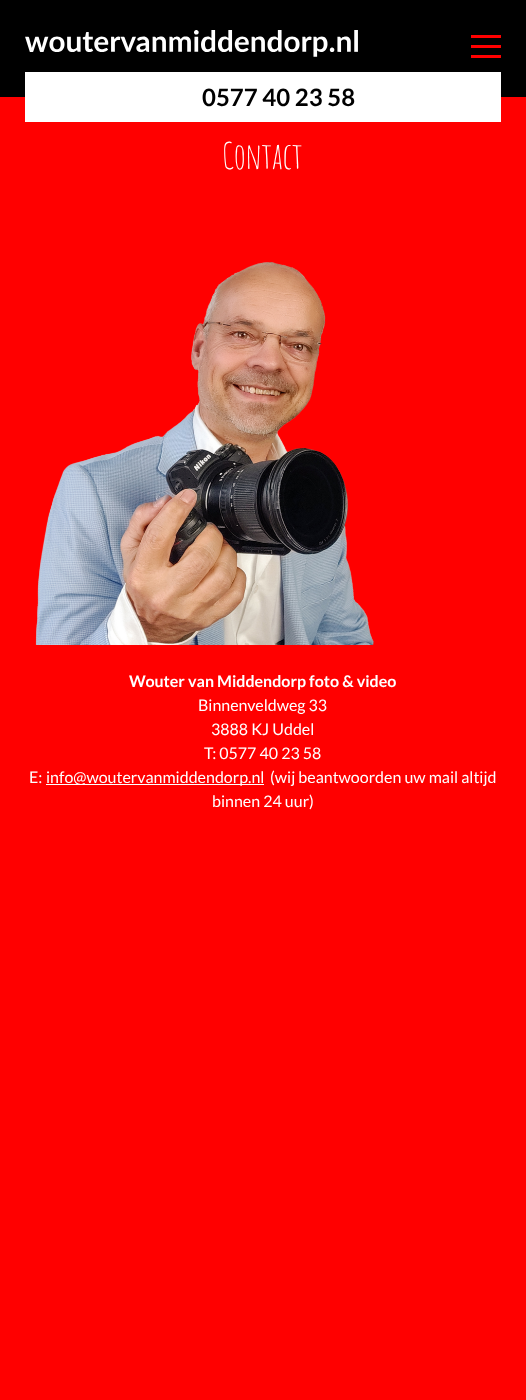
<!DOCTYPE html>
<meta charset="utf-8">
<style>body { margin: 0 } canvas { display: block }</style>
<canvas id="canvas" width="526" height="1400"></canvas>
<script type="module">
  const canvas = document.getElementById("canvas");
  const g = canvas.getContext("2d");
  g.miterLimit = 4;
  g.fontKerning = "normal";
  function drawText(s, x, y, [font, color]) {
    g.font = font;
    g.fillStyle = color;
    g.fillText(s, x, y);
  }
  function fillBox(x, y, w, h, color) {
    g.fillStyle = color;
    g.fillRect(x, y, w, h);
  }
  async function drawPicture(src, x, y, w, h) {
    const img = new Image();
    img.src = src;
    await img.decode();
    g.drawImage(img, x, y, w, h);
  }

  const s1 = ["bold 24px Lato", "#000000"];
  const s2 = ["36px Amatic SC", "#FFFFFF"];
  const s3 = ["bold 16px Lato", "#FFFFFF"];
  const s4 = ["16px Lato", "#FFFFFF"];

  fillBox(0, 0, 526, 1400, "#FF0000");
  fillBox(0, 0, 526, 97, "#000000");
  await drawPicture("pic1.png", 25, 30, 333, 27);
  fillBox(471, 35, 30, 3, "#FF0000");
  fillBox(471, 45, 30, 3, "#FF0000");
  fillBox(471, 55, 30, 3, "#FF0000");
  fillBox(25, 72, 476, 50, "#FFFFFF");
  drawText("0577 40 23 58", 202, 106, s1);
  g.letterSpacing = "-0.5px";
  drawText("Contact", 222, 169, s2);
  await drawPicture("pic2.png", 35, 262, 339, 383);
  g.letterSpacing = "0px";
  drawText("Wouter van Middendorp foto & video", 129, 687, s3);
  drawText("Binnenveldweg 33", 198, 711, s4);
  drawText("3888 KJ Uddel", 211, 735, s4);
  drawText("T: 0577 40 23 58", 204, 759, s4);
  drawText("E:", 29, 783, s4);
  fillBox(46, 784, 218, 1, "#FFFFFF");
  drawText("info@woutervanmiddendorp.nl", 46, 783, s4);
  drawText("(wij beantwoorden uw mail altijd", 270, 783, s4);
  drawText("binnen 24 uur)", 212, 807, s4);
</script>
